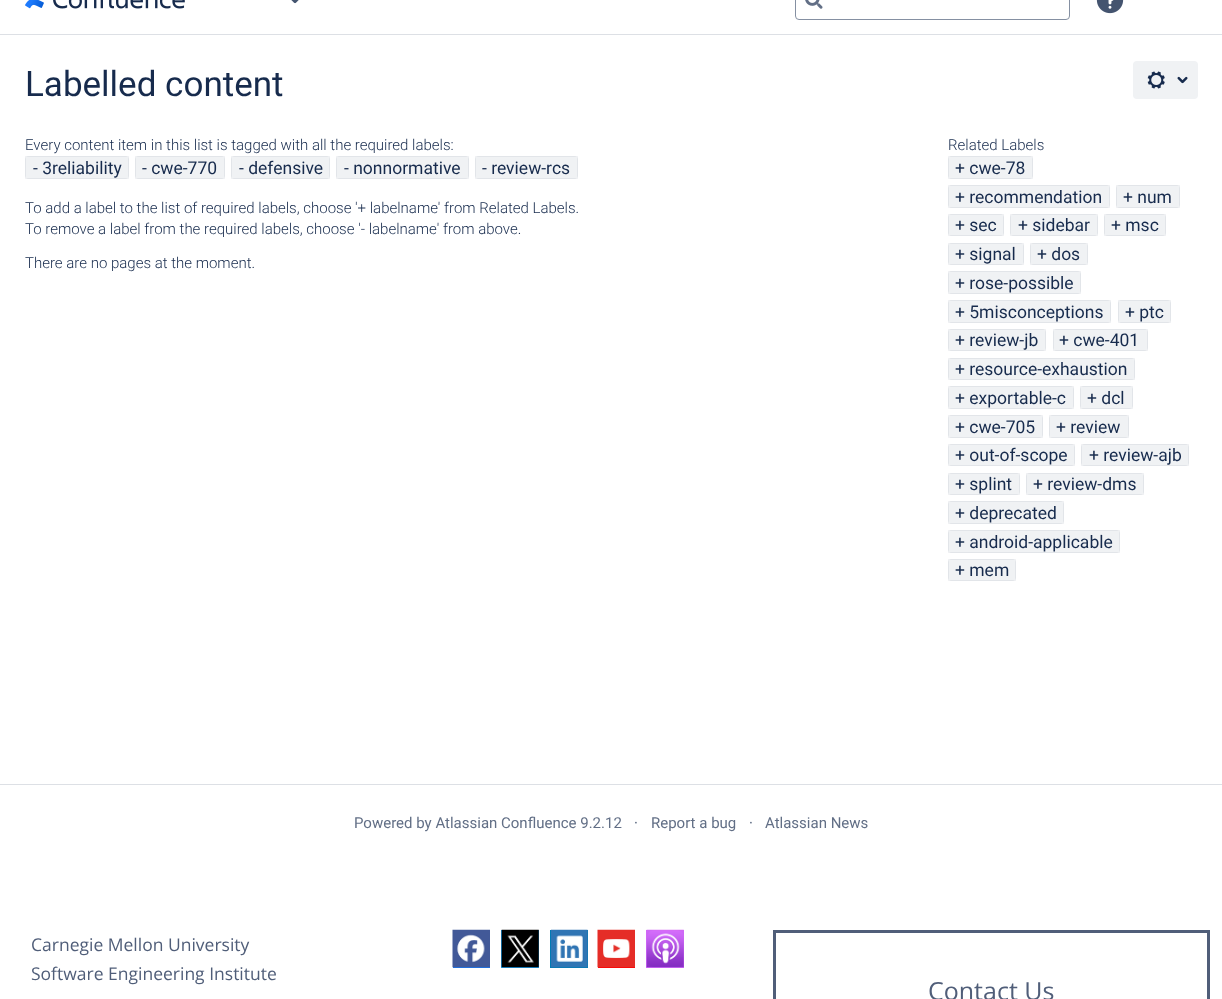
<!DOCTYPE html>
<meta charset="utf-8">
<style>body { margin: 0 } canvas { display: block }</style>
<canvas id="canvas" width="1222" height="999"></canvas>
<script type="module">
  const canvas = document.getElementById("canvas");
  const g = canvas.getContext("2d");
  g.miterLimit = 4;
  g.fontKerning = "normal";
  function drawText(s, x, y, [font, color]) {
    g.font = font;
    g.fillStyle = color;
    g.fillText(s, x, y);
  }
  function fillBox(x, y, w, h, color) {
    g.fillStyle = color;
    g.fillRect(x, y, w, h);
  }
  function fillRounded(x, y, w, h, r, color) {
    g.fillStyle = color;
    g.beginPath();
    g.roundRect(x, y, w, h, r);
    g.fill();
  }
  async function drawPicture(src, x, y, w, h) {
    const img = new Image();
    img.src = src;
    await img.decode();
    g.drawImage(img, x, y, w, h);
  }

  const s1 = ["35px Roboto", "#172B4D"];
  const s2 = ["300 15px Roboto", "#172B4D"];
  const s3 = ["17.5px Roboto", "#172B4D"];
  const s4 = ["15px Roboto", "#626F86"];
  const s5 = ["17.5px Open Sans", "#505E79"];
  const s6 = ["25px Open Sans", "#505E79"];

  fillBox(0, 0, 1222, 999, "#FFFFFF");
  fillBox(0, 34, 1222, 1, "#DDE0E5");
  await drawPicture("pic1.png", 25, 0, 160, 9);
  await drawPicture("pic2.png", 291, 0, 8, 4);
  g.beginPath();
  g.roundRect(795.5, -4.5, 274, 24, 3.5);
  g.strokeStyle = "#8590A2";
  g.stroke();
  await drawPicture("pic3.png", 805, 0, 18, 9);
  await drawPicture("pic4.png", 1096, 0, 28, 14);
  fillBox(0, 784, 1222, 1, "#DDE0E5");
  drawText("Labelled content", 25, 96, s1);
  fillRounded(1133, 61, 65, 38, 4, "#F0F2F4");
  await drawPicture("pic5.png", 1147, 71, 18, 18);
  await drawPicture("pic6.png", 1177, 76, 11, 8);
  drawText("Every content item in this list is tagged with all the required labels:", 25, 150, s2);
  fillRounded(25, 156, 104, 23, 4, "#F0F2F4");
  g.strokeStyle = "rgba(9, 30, 66, 0.06)";
  g.strokeRect(25.5, 156.5, 103, 22);
  drawText("- 3reliability", 33, 174, s3);
  fillRounded(135, 156, 90, 23, 4, "#F0F2F4");
  g.strokeRect(135.5, 156.5, 89, 22);
  drawText("- cwe-770", 142, 174, s3);
  fillRounded(231, 156, 99, 23, 4, "#F0F2F4");
  g.strokeRect(231.5, 156.5, 98, 22);
  drawText("- defensive", 239, 174, s3);
  fillRounded(336, 156, 133, 23, 4, "#F0F2F4");
  g.strokeRect(336.5, 156.5, 132, 22);
  drawText("- nonnormative", 344, 174, s3);
  fillRounded(475, 156, 103, 23, 4, "#F0F2F4");
  g.strokeRect(475.5, 156.5, 102, 22);
  drawText("- review-rcs", 482, 174, s3);
  drawText("To add a label to the list of required labels, choose '+ labelname' from Related Labels.", 25, 213, s2);
  drawText("To remove a label from the required labels, choose '- labelname' from above.", 25, 234, s2);
  drawText("There are no pages at the moment.", 25, 268, s2);
  drawText("Related Labels", 948, 150, s2);
  fillRounded(948, 156, 85, 23, 4, "#F0F2F4");
  g.strokeRect(948.5, 156.5, 84, 22);
  drawText("+ cwe-78", 955, 174, s3);
  fillRounded(948, 185, 162, 23, 4, "#F0F2F4");
  g.strokeRect(948.5, 185.5, 161, 22);
  drawText("+ recommendation", 955, 203, s3);
  fillRounded(1116, 185, 64, 23, 4, "#F0F2F4");
  g.strokeRect(1116.5, 185.5, 63, 22);
  drawText("+ num", 1123, 203, s3);
  fillRounded(948, 214, 56, 22, 4, "#F0F2F4");
  g.strokeRect(948.5, 214.5, 55, 21);
  drawText("+ sec", 955, 231, s3);
  fillRounded(1010, 214, 88, 22, 4, "#F0F2F4");
  g.strokeRect(1010.5, 214.5, 87, 21);
  drawText("+ sidebar", 1018, 231, s3);
  fillRounded(1104, 214, 62, 22, 4, "#F0F2F4");
  g.strokeRect(1104.5, 214.5, 61, 21);
  drawText("+ msc", 1111, 231, s3);
  fillRounded(948, 243, 76, 22, 4, "#F0F2F4");
  g.strokeRect(948.5, 243.5, 75, 21);
  drawText("+ signal", 955, 260, s3);
  fillRounded(1030, 243, 58, 22, 4, "#F0F2F4");
  g.strokeRect(1030.5, 243.5, 57, 21);
  drawText("+ dos", 1037, 260, s3);
  fillRounded(948, 271, 133, 23, 4, "#F0F2F4");
  g.strokeRect(948.5, 271.5, 132, 22);
  drawText("+ rose-possible", 955, 289, s3);
  fillRounded(948, 300, 163, 23, 4, "#F0F2F4");
  g.strokeRect(948.5, 300.5, 162, 22);
  drawText("+ 5misconceptions", 955, 318, s3);
  fillRounded(1118, 300, 53, 23, 4, "#F0F2F4");
  g.strokeRect(1118.5, 300.5, 52, 22);
  drawText("+ ptc", 1125, 318, s3);
  fillRounded(948, 329, 98, 22, 4, "#F0F2F4");
  g.strokeRect(948.5, 329.5, 97, 21);
  drawText("+ review-jb", 955, 346, s3);
  fillRounded(1053, 329, 95, 22, 4, "#F0F2F4");
  g.strokeRect(1053.5, 329.5, 94, 21);
  drawText("+ cwe-401", 1059, 346, s3);
  fillRounded(948, 358, 187, 22, 4, "#F0F2F4");
  g.strokeRect(948.5, 358.5, 186, 21);
  drawText("+ resource-exhaustion", 955, 375, s3);
  fillRounded(948, 386, 126, 23, 4, "#F0F2F4");
  g.strokeRect(948.5, 386.5, 125, 22);
  drawText("+ exportable-c", 955, 404, s3);
  fillRounded(1080, 386, 53, 23, 4, "#F0F2F4");
  g.strokeRect(1080.5, 386.5, 52, 22);
  drawText("+ dcl", 1087, 404, s3);
  fillRounded(948, 415, 95, 23, 4, "#F0F2F4");
  g.strokeRect(948.5, 415.5, 94, 22);
  drawText("+ cwe-705", 955, 433, s3);
  fillRounded(1049, 415, 80, 23, 4, "#F0F2F4");
  g.strokeRect(1049.5, 415.5, 79, 22);
  drawText("+ review", 1056, 433, s3);
  fillRounded(948, 444, 127, 22, 4, "#F0F2F4");
  g.strokeRect(948.5, 444.5, 126, 21);
  drawText("+ out-of-scope", 955, 461, s3);
  fillRounded(1081, 444, 108, 22, 4, "#F0F2F4");
  g.strokeRect(1081.5, 444.5, 107, 21);
  drawText("+ review-ajb", 1089, 461, s3);
  fillRounded(948, 473, 72, 22, 4, "#F0F2F4");
  g.strokeRect(948.5, 473.5, 71, 21);
  drawText("+ splint", 955, 490, s3);
  fillRounded(1026, 473, 118, 22, 4, "#F0F2F4");
  g.strokeRect(1026.5, 473.5, 117, 21);
  drawText("+ review-dms", 1033, 490, s3);
  fillRounded(948, 501, 116, 23, 4, "#F0F2F4");
  g.strokeRect(948.5, 501.5, 115, 22);
  drawText("+ deprecated", 955, 519, s3);
  fillRounded(948, 530, 172, 23, 4, "#F0F2F4");
  g.strokeRect(948.5, 530.5, 171, 22);
  drawText("+ android-applicable", 955, 548, s3);
  fillRounded(948, 559, 68, 22, 4, "#F0F2F4");
  g.strokeRect(948.5, 559.5, 67, 21);
  drawText("+ mem", 955, 576, s3);
  drawText("Powered by Atlassian Confluence 9.2.12", 354, 828, s4);
  drawText("·", 634, 828, s4);
  drawText("Report a bug", 651, 828, s4);
  drawText("·", 749, 828, s4);
  drawText("Atlassian News", 765, 828, s4);
  drawText("Carnegie Mellon University", 31, 951, s5);
  drawText("Software Engineering Institute", 31, 980, s5);
  fillBox(453, 967, 37, 1, "#1877F2");
  await drawPicture("pic7.png", 452, 929, 38, 39);
  fillBox(501, 930, 38, 38, "#1DA1F2");
  await drawPicture("pic8.png", 501, 929, 38, 39);
  fillBox(550, 930, 38, 38, "#007BB5");
  await drawPicture("pic9.png", 551, 929, 37, 39);
  fillBox(598, 967, 37, 1, "#FF0000");
  await drawPicture("pic10.png", 597, 929, 38, 39);
  fillBox(646, 930, 38, 38, "#D56DFB");
  await drawPicture("pic11.png", 646, 929, 38, 39);
  g.strokeStyle = "#505E79";
  g.lineWidth = 3;
  g.strokeRect(774.5, 931.5, 434, 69);
  drawText("Contact Us", 928, 1000, s6);
</script>
